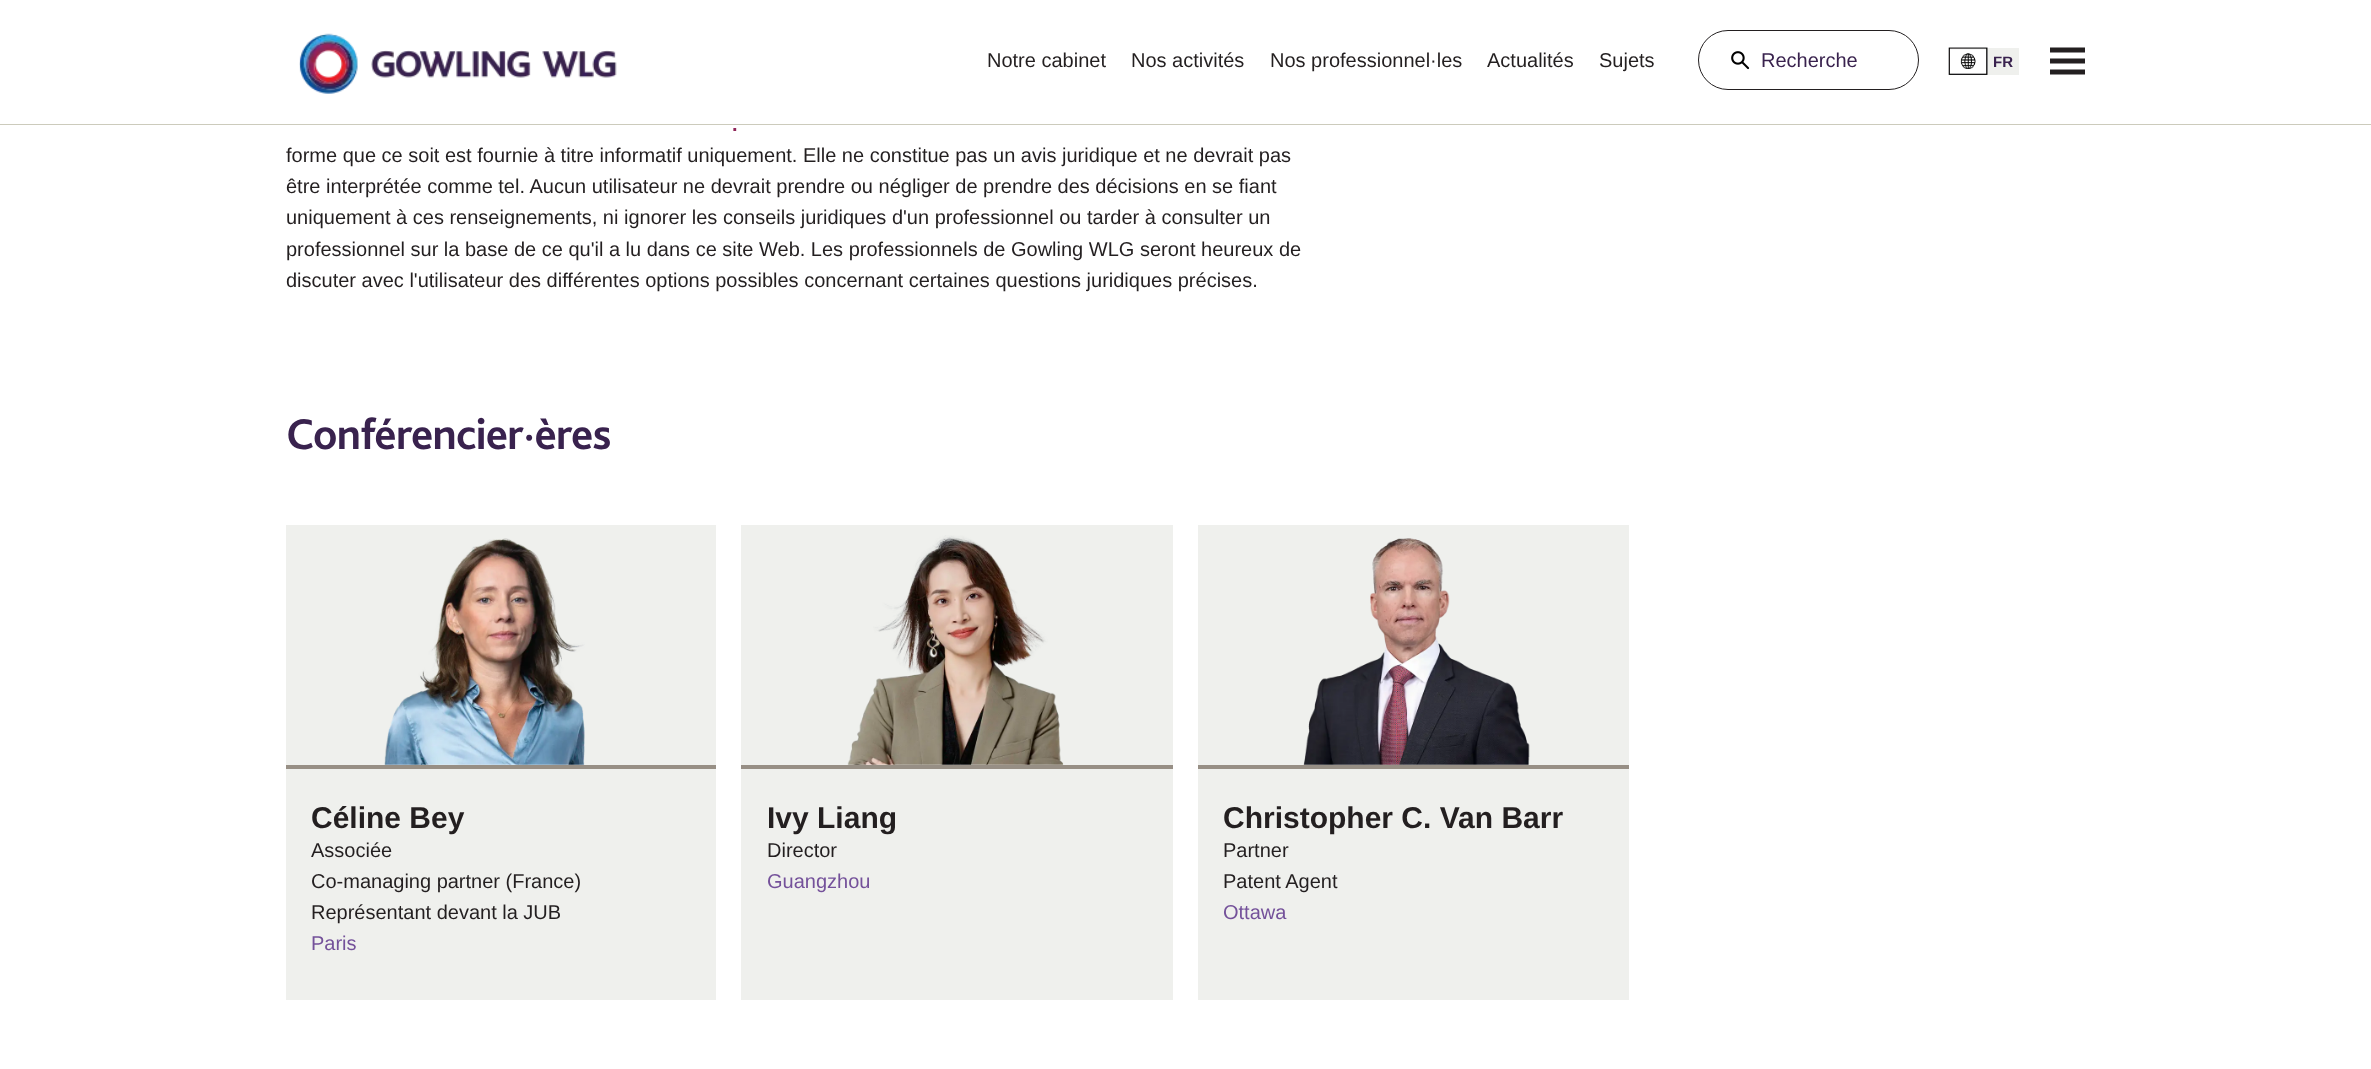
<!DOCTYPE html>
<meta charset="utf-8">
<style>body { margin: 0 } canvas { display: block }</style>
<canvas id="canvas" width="2371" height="1069"></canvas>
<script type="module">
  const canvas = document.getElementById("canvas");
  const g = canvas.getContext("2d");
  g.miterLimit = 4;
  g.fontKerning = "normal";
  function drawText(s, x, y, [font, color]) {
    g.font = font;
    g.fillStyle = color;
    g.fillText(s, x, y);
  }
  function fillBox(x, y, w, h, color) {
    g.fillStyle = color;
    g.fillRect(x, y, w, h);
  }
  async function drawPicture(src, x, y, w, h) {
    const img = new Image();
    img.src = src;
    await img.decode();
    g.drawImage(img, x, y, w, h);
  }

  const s1 = ["20px Liberation Sans", "#231F20"];
  const s2 = ["20px Liberation Sans", "#39224E"];
  const s3 = ["bold 15px Liberation Sans", "#39224E"];
  const s4 = ["bold 20px Liberation Sans", "#8F2457"];
  const s5 = ["bold 45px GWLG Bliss", "#39224E"];
  const s6 = ["bold 30px Liberation Sans", "#231F20"];
  const s7 = ["20px Liberation Sans", "#74519A"];

  fillBox(0, 0, 2371, 1069, "#FFFFFF");
  fillBox(0, 124, 2371, 1, "#CCCBBC");
  await drawPicture("pic1.png", 299, 33, 318, 61);
  drawText("Notre cabinet", 987, 67, s1);
  drawText("Nos activités", 1131, 67, s1);
  drawText("Nos professionnel·les", 1270, 67, s1);
  drawText("Actualités", 1487, 67, s1);
  drawText("Sujets", 1599, 67, s1);
  g.beginPath();
  g.roundRect(1698.5, 30.5, 220, 59, 29.5);
  g.strokeStyle = "#231F20";
  g.stroke();
  await drawPicture("pic2.png", 1731, 51, 19, 19);
  drawText("Recherche", 1761, 67, s2);
  await drawPicture("pic3.png", 1948, 47, 40, 28);
  fillBox(1988, 48, 31, 27, "#EFF0ED");
  drawText("FR", 1993, 67, s3);
  g.fillStyle = "#231F20";
  g.beginPath();
  g.moveTo(2050, 47.5);
  g.lineTo(2050, 52.5);
  g.lineTo(2085, 52.5);
  g.lineTo(2085, 47.5);
  g.closePath();
  g.moveTo(2050, 58.5);
  g.lineTo(2050, 63.5);
  g.lineTo(2085, 63.5);
  g.lineTo(2085, 58.5);
  g.closePath();
  g.moveTo(2050, 69.5);
  g.lineTo(2050, 74.5);
  g.lineTo(2085, 74.5);
  g.lineTo(2085, 69.5);
  g.closePath();
  g.fill();
  drawText(".", 732, 131, s4);
  drawText("forme que ce soit est fournie à titre informatif uniquement. Elle ne constitue pas un avis juridique et ne devrait pas", 286, 162, s1);
  drawText("être interprétée comme tel. Aucun utilisateur ne devrait prendre ou négliger de prendre des décisions en se fiant", 286, 193, s1);
  drawText("uniquement à ces renseignements, ni ignorer les conseils juridiques d'un professionnel ou tarder à consulter un", 286, 224, s1);
  drawText("professionnel sur la base de ce qu'il a lu dans ce site Web. Les professionnels de Gowling WLG seront heureux de", 286, 256, s1);
  drawText("discuter avec l'utilisateur des différentes options possibles concernant certaines questions juridiques précises.", 286, 287, s1);
  g.letterSpacing = "-0.6px";
  drawText("Conférencier·ères", 286, 449, s5);
  fillBox(286, 525, 430, 475, "#EFF0ED");
  fillBox(286, 765, 430, 4, "#978F85");
  await drawPicture("pic4.png", 384, 538, 201, 227);
  g.letterSpacing = "0px";
  drawText("Céline Bey", 311, 828, s6);
  drawText("Associée", 311, 857, s1);
  drawText("Co-managing partner (France)", 311, 888, s1);
  drawText("Représentant devant la JUB", 311, 919, s1);
  drawText("Paris", 311, 950, s7);
  fillBox(741, 525, 432, 475, "#EFF0ED");
  fillBox(741, 765, 432, 4, "#978F85");
  await drawPicture("pic5.png", 847, 535, 217, 230);
  drawText("Ivy Liang", 767, 828, s6);
  drawText("Director", 767, 857, s1);
  drawText("Guangzhou", 767, 888, s7);
  fillBox(1198, 525, 431, 475, "#EFF0ED");
  fillBox(1198, 765, 431, 4, "#978F85");
  await drawPicture("pic6.png", 1303, 538, 227, 227);
  drawText("Christopher C. Van Barr", 1223, 828, s6);
  drawText("Partner", 1223, 857, s1);
  drawText("Patent Agent", 1223, 888, s1);
  drawText("Ottawa", 1223, 919, s7);
</script>
